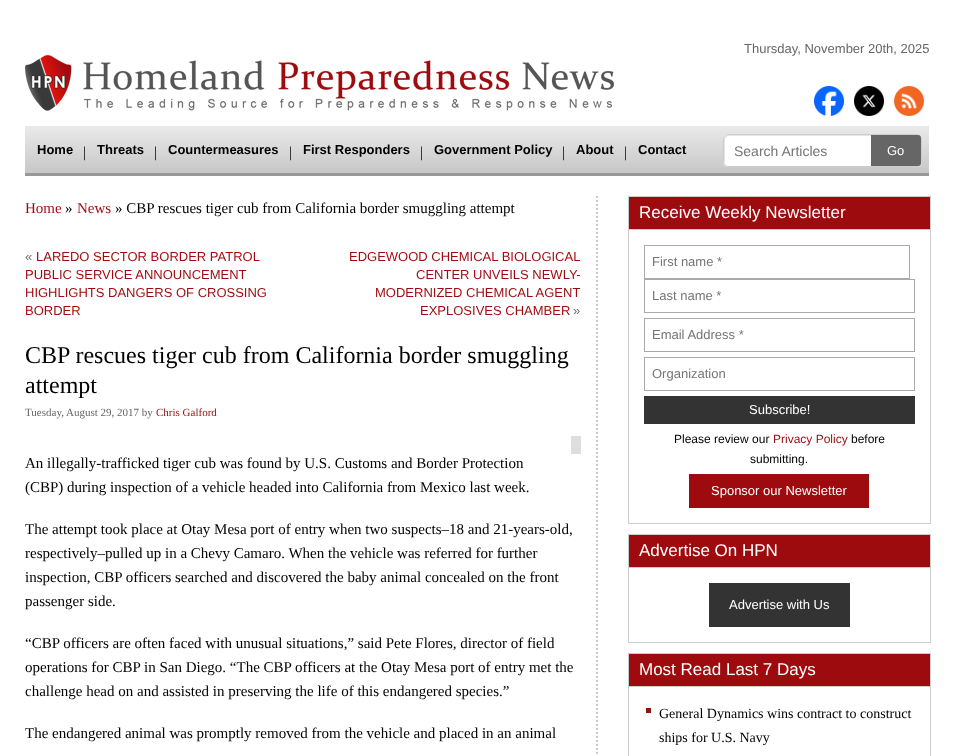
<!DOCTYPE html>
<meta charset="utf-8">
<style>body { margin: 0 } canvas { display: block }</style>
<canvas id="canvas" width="954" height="756"></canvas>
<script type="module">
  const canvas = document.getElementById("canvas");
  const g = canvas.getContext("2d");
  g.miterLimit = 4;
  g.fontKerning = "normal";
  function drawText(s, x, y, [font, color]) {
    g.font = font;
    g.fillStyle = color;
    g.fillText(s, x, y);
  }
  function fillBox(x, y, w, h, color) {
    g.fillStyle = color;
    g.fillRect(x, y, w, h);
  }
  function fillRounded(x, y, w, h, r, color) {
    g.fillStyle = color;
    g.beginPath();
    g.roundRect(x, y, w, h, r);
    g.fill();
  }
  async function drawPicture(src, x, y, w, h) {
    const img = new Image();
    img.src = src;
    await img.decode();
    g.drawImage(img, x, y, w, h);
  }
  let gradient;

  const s1 = ["13px Liberation Sans", "#666666"];
  const s2 = ["bold 13px Liberation Sans", "#000000"];
  const s3 = ["15px Liberation Serif", "#000000"];
  const s4 = ["14px Liberation Sans", "#757575"];
  const s5 = ["13px Liberation Sans", "#FFFFFF"];
  const s6 = ["15px Liberation Serif", "#9E0B0F"];
  const s7 = ["13px Liberation Sans", "#9E0B0F"];
  const s8 = ["24px Liberation Serif", "#000000"];
  const s9 = ["11px Liberation Serif", "#666666"];
  const s10 = ["11px Liberation Serif", "#9E0B0F"];
  const s11 = ["17px Liberation Sans", "#FFFFFF"];
  const s12 = ["13px Liberation Sans", "#757575"];
  const s13 = ["12px Liberation Sans", "#000000"];
  const s14 = ["12px Liberation Sans", "#9E0B0F"];
  const s15 = ["14px Liberation Serif", "#000000"];

  fillBox(0, 0, 954, 756, "#FFFFFF");
  drawText("Thursday, November 20th, 2025", 744, 53, s1);
  await drawPicture("pic1.png", 25, 55, 589, 56);
  await drawPicture("pic2.png", 814, 86, 30, 30);
  await drawPicture("pic3.png", 854, 86, 30, 30);
  await drawPicture("pic4.png", 894, 86, 30, 30);
  gradient = g.createLinearGradient(477, 126, 477, 173);
  gradient.addColorStop(0, "#EAEAEA");
  gradient.addColorStop(1, "#C7C7C7");
  g.fillStyle = gradient;
  g.fillRect(25, 126, 904, 47);
  fillBox(25, 173, 904, 3, "#989898");
  drawText("Home", 37, 154, s2);
  drawText("|", 83, 157, s3);
  drawText("Threats", 97, 154, s2);
  drawText("|", 154, 157, s3);
  drawText("Countermeasures", 168, 154, s2);
  drawText("|", 289, 157, s3);
  drawText("First Responders", 303, 154, s2);
  drawText("|", 420, 157, s3);
  drawText("Government Policy", 434, 154, s2);
  drawText("|", 562, 157, s3);
  drawText("About", 576, 154, s2);
  drawText("|", 624, 157, s3);
  drawText("Contact", 638, 154, s2);
  fillRounded(723, 134, 199, 33, 5, "#FFFFFF");
  g.fillStyle = "#E6E6E6";
  g.beginPath();
  g.moveTo(729, 136);
  g.lineTo(918, 136);
  g.lineTo(920, 137);
  g.bezierCurveTo(920, 136, 918, 135, 917, 135);
  g.lineTo(728, 135);
  g.bezierCurveTo(726, 135, 724, 137, 724, 139);
  g.lineTo(724, 162);
  g.bezierCurveTo(724, 163, 725, 165, 726, 165);
  g.lineTo(725, 163);
  g.lineTo(725, 140);
  g.bezierCurveTo(725, 138, 727, 136, 729, 136);
  g.closePath();
  g.fill();
  g.beginPath();
  g.roundRect(723.5, 134.5, 198, 32, 4.5);
  g.strokeStyle = "#CCCCCC";
  g.stroke();
  drawText("Search Articles", 734, 156, s4);
  g.fillStyle = "#666666";
  g.beginPath();
  g.roundRect(871, 135, 50, 31, [0, 3, 3, 0]);
  g.fill();
  drawText("Go", 887, 155, s5);
  g.beginPath();
  g.moveTo(597, 196);
  g.lineTo(597, 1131);
  g.lineWidth = 2;
  g.setLineDash([2, 2]);
  g.stroke();
  drawText("Home", 25, 213, s6);
  drawText("»", 65, 213, s3);
  drawText("News", 77, 213, s6);
  drawText("» CBP rescues tiger cub from California border smuggling attempt", 115, 213, s3);
  drawText("«", 25, 261, s1);
  drawText("LAREDO SECTOR BORDER PATROL", 36, 261, s7);
  drawText("PUBLIC SERVICE ANNOUNCEMENT", 25, 279, s7);
  drawText("HIGHLIGHTS DANGERS OF CROSSING", 25, 297, s7);
  drawText("BORDER", 25, 315, s7);
  drawText("EDGEWOOD CHEMICAL BIOLOGICAL", 349, 261, s7);
  drawText("CENTER UNVEILS NEWLY-", 416, 279, s7);
  drawText("MODERNIZED CHEMICAL AGENT", 375, 297, s7);
  drawText("EXPLOSIVES CHAMBER", 420, 315, s7);
  drawText("»", 573, 315, s1);
  drawText("CBP rescues tiger cub from California border smuggling", 25, 363, s8);
  drawText("attempt", 25, 393, s8);
  drawText("Tuesday, August 29, 2017 by", 25, 416, s9);
  drawText("Chris Galford", 156, 416, s10);
  fillBox(571, 436, 10, 18, "#DEDEDE");
  drawText("An illegally-trafficked tiger cub was found by U.S. Customs and Border Protection", 25, 468, s3);
  drawText("(CBP) during inspection of a vehicle headed into California from Mexico last week.", 25, 492, s3);
  drawText("The attempt took place at Otay Mesa port of entry when two suspects–18 and 21-years-old,", 25, 534, s3);
  drawText("respectively–pulled up in a Chevy Camaro. When the vehicle was referred for further", 25, 558, s3);
  drawText("inspection, CBP officers searched and discovered the baby animal concealed on the front", 25, 582, s3);
  drawText("passenger side.", 25, 606, s3);
  drawText("“CBP officers are often faced with unusual situations,” said Pete Flores, director of field", 25, 648, s3);
  drawText("operations for CBP in San Diego. “The CBP officers at the Otay Mesa port of entry met the", 25, 672, s3);
  drawText("challenge head on and assisted in preserving the life of this endangered species.”", 25, 696, s3);
  drawText("The endangered animal was promptly removed from the vehicle and placed in an animal", 25, 738, s3);
  fillBox(930, 196, 1, 328, "#CCCCCC");
  fillBox(628, 523, 303, 1, "#CCCCCC");
  fillBox(628, 196, 1, 328, "#CCCCCC");
  fillBox(629, 197, 301, 32, "#9E0B0F");
  fillBox(629, 196, 301, 1, "#CCCCCC");
  fillBox(629, 229, 301, 1, "#CCCCCC");
  drawText("Receive Weekly Newsletter", 639, 218, s11);
  g.strokeStyle = "#AAAAAA";
  g.lineWidth = 1;
  g.setLineDash([]);
  g.strokeRect(644.5, 245.5, 265, 33);
  drawText("First name *", 652, 266, s12);
  g.strokeRect(644.5, 279.5, 270, 33);
  drawText("Last name *", 652, 300, s12);
  g.strokeRect(644.5, 318.5, 270, 33);
  drawText("Email Address *", 652, 339, s12);
  g.strokeRect(644.5, 357.5, 270, 33);
  drawText("Organization", 652, 378, s12);
  fillBox(644, 396, 271, 28, "#333333");
  drawText("Subscribe!", 749, 414, s5);
  drawText("Please review our", 674, 443, s13);
  drawText("Privacy Policy", 773, 443, s14);
  drawText("before", 851, 443, s13);
  drawText("submitting.", 750, 463, s13);
  fillBox(689, 474, 180, 34, "#9E0B0F");
  drawText("Sponsor our Newsletter", 711, 495, s5);
  fillBox(930, 534, 1, 109, "#CCCCCC");
  fillBox(628, 642, 303, 1, "#CCCCCC");
  fillBox(628, 534, 1, 109, "#CCCCCC");
  fillBox(629, 535, 301, 32, "#9E0B0F");
  fillBox(629, 534, 301, 1, "#CCCCCC");
  fillBox(629, 567, 301, 1, "#CCCCCC");
  drawText("Advertise On HPN", 639, 556, s11);
  fillBox(709, 583, 141, 44, "#333333");
  drawText("Advertise with Us", 729, 609, s5);
  fillBox(930, 653, 1, 103, "#CCCCCC");
  fillBox(628, 653, 1, 103, "#CCCCCC");
  fillBox(629, 654, 301, 32, "#9E0B0F");
  fillBox(629, 653, 301, 1, "#CCCCCC");
  fillBox(629, 686, 301, 1, "#CCCCCC");
  drawText("Most Read Last 7 Days", 639, 675, s11);
  fillBox(646, 708, 5, 5, "#971208");
  drawText("General Dynamics wins contract to construct", 659, 718, s15);
  drawText("ships for U.S. Navy", 659, 742, s15);
</script>
